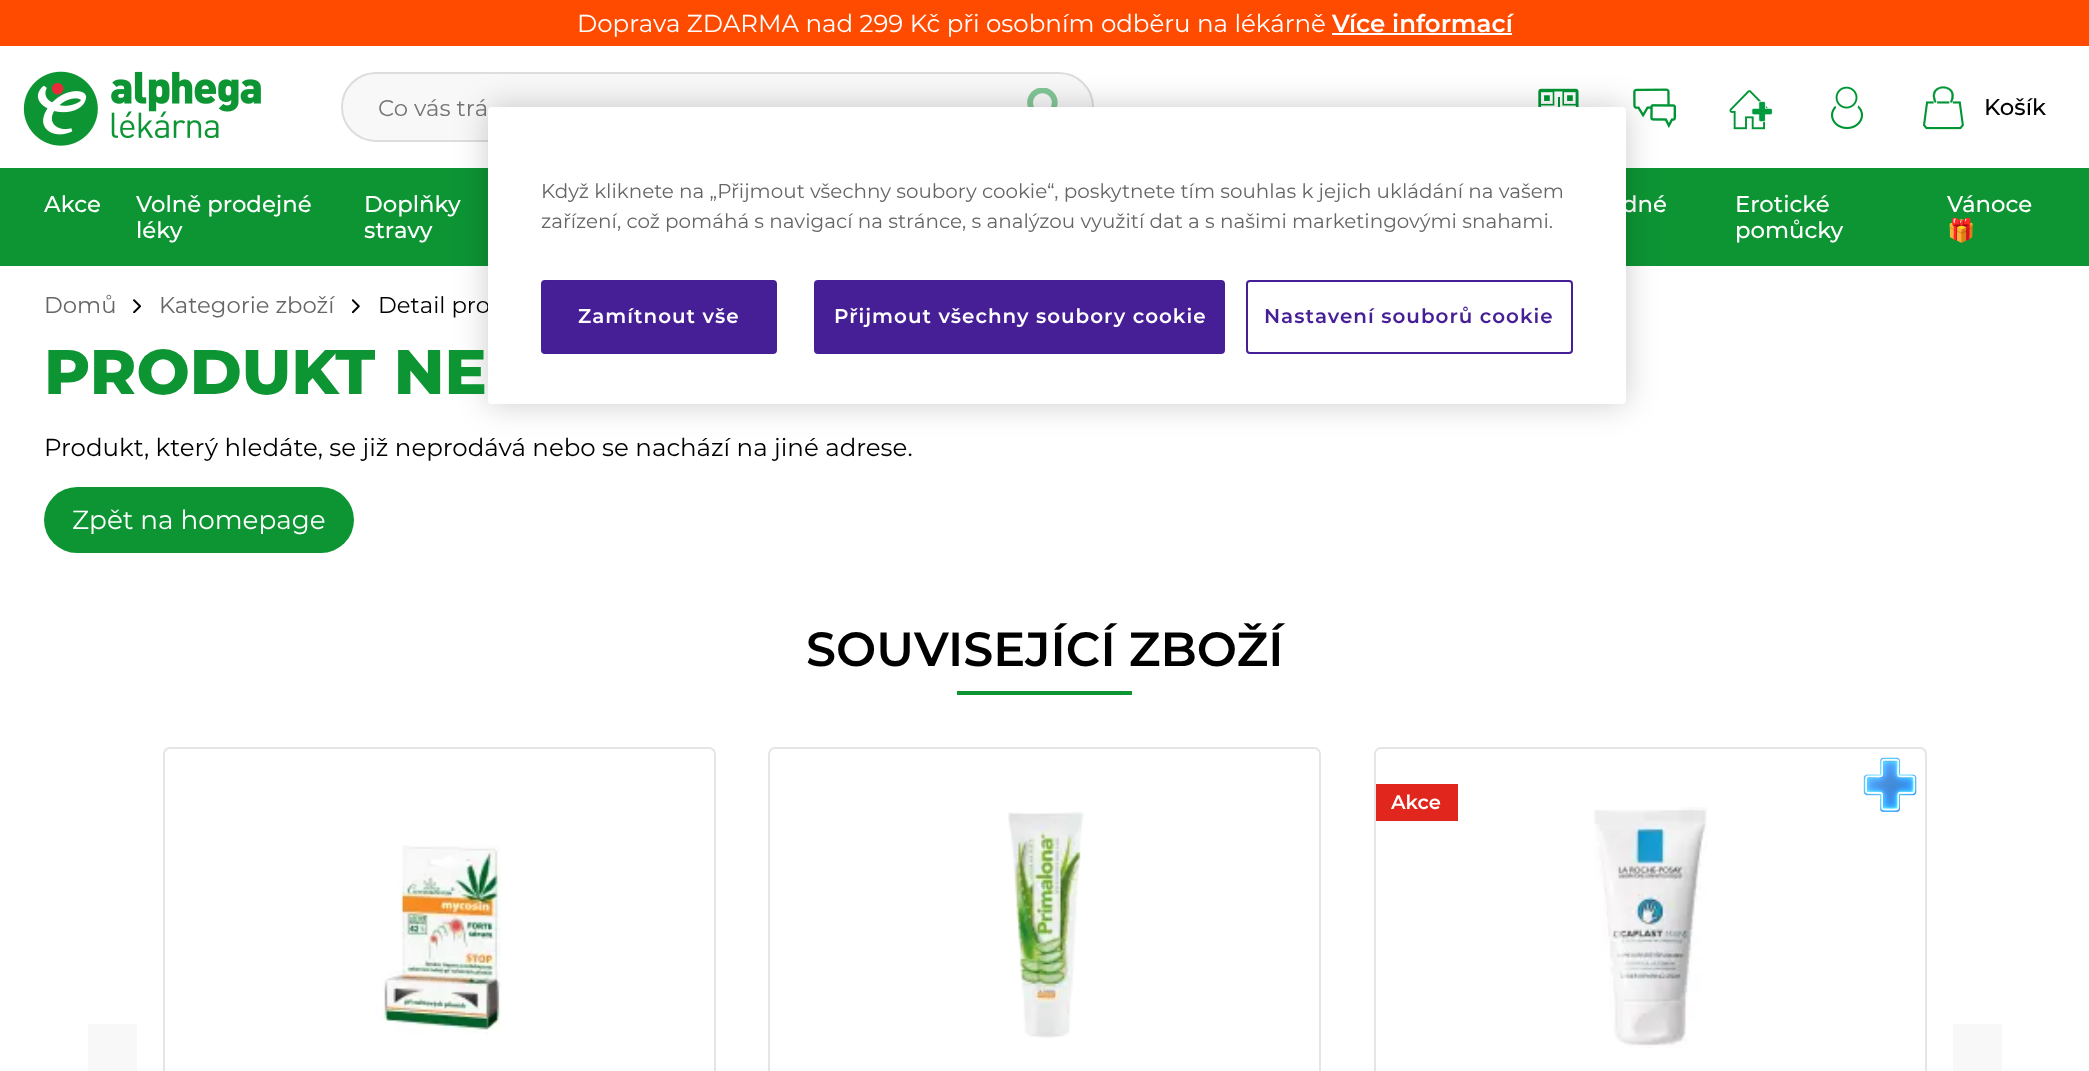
<!DOCTYPE html>
<meta charset="utf-8">
<style>body { margin: 0 } canvas { display: block }</style>
<canvas id="canvas" width="2089" height="1071"></canvas>
<script type="module">
  const canvas = document.getElementById("canvas");
  const g = canvas.getContext("2d");
  g.miterLimit = 4;
  g.fontKerning = "normal";
  function drawText(s, x, y, [font, color]) {
    g.font = font;
    g.fillStyle = color;
    g.fillText(s, x, y);
  }
  function fillBox(x, y, w, h, color) {
    g.fillStyle = color;
    g.fillRect(x, y, w, h);
  }
  function fillRounded(x, y, w, h, r, color) {
    g.fillStyle = color;
    g.beginPath();
    g.roundRect(x, y, w, h, r);
    g.fill();
  }
  async function drawPicture(src, x, y, w, h) {
    const img = new Image();
    img.src = src;
    await img.decode();
    g.drawImage(img, x, y, w, h);
  }

  const s1 = ["24.5px Montserrat", "#FFFFFF"];
  const s2 = ["600 24.5px Montserrat", "#FFFFFF"];
  const s3 = ["22.75px Montserrat", "#757575"];
  const s4 = ["500 22.75px Montserrat", "#000000"];
  const s5 = ["500 22.75px Montserrat", "#FFFFFF"];
  const s6 = ["22.75px Noto Color Emoji", "#FFFFFF"];
  const s7 = ["22.75px Montserrat", "#000000"];
  const s8 = ["19.92px Montserrat", "#666666"];
  const s9 = ["600 19.92px Montserrat", "#FFFFFF"];
  const s10 = ["600 19.92px Montserrat", "#461E96"];
  const s11 = ["22.75px Montserrat", "#666666"];
  const s12 = ["800 63px Montserrat", "#0D9534"];
  const s13 = ["24.5px Montserrat", "#000000"];
  const s14 = ["26.25px Montserrat", "#FFFFFF"];
  const s15 = ["600 47.75px Montserrat", "#000000"];
  const s16 = ["600 19.5px Montserrat", "#FFFFFF"];

  fillBox(0, 0, 2089, 1071, "#FFFFFF");
  fillBox(0, 0, 2089, 46, "#FF4B00");
  drawText("Doprava ZDARMA nad 299 Kč při osobním odběru na lékárně", 577, 32, s1);
  drawText("Více informací", 1332, 32, s2);
  fillBox(1332, 33, 180, 2, "#FFFFFF");
  await drawPicture("pic1.png", 23, 71, 238, 75);
  g.fillStyle = "#F8F8F8";
  g.beginPath();
  g.roundRect(342, 73, 751, 68, 34);
  g.fill();
  g.strokeStyle = "#DDDDDD";
  g.lineWidth = 2;
  g.stroke();
  drawText("Co vás trá", 378, 116, s3);
  await drawPicture("pic2.png", 1027, 88, 31, 19);
  await drawPicture("pic3.png", 1538, 88, 41, 19);
  await drawPicture("pic4.png", 1633, 88, 44, 40);
  await drawPicture("pic5.png", 1729, 90, 44, 40);
  await drawPicture("pic6.png", 1831, 86, 32, 44);
  await drawPicture("pic7.png", 1922, 86, 42, 44);
  drawText("Košík", 1984, 115, s4);
  fillBox(0, 168, 2089, 98, "#0D9534");
  drawText("Akce", 44, 212, s5);
  drawText("Volně prodejné", 136, 212, s5);
  drawText("léky", 136, 238, s5);
  drawText("Doplňky", 364, 212, s5);
  drawText("stravy", 364, 238, s5);
  drawText("dné", 1622, 212, s5);
  drawText("Erotické", 1735, 212, s5);
  drawText("pomůcky", 1735, 238, s5);
  drawText("Vánoce", 1947, 212, s5);
  drawText("🎁", 1947, 238, s6);
  g.fillStyle = "rgba(0, 0, 0, 0.2)";
  g.filter = "blur(16px)";
  g.beginPath();
  g.roundRect(488, 107, 1138, 297, 4);
  g.fill();
  g.filter = "none";
  drawText("Detail pro", 378, 313, s7);
  fillRounded(488, 107, 1138, 297, 4, "#FFFFFF");
  drawText("Když kliknete na „Přijmout všechny soubory cookie“, poskytnete tím souhlas k jejich ukládání na vašem", 541, 198, s8);
  drawText("zařízení, což pomáhá s navigací na stránce, s analýzou využití dat a s našimi marketingovými snahami.", 541, 228, s8);
  g.fillStyle = "#461E96";
  g.beginPath();
  g.roundRect(542, 281, 234, 72, 3);
  g.fill();
  g.strokeStyle = "#461E96";
  g.stroke();
  g.letterSpacing = "1px";
  drawText("Zamítnout vše", 578, 323, s9);
  g.fillStyle = "#461E96";
  g.beginPath();
  g.roundRect(815, 281, 409, 72, 3);
  g.fill();
  g.stroke();
  drawText("Přijmout všechny soubory cookie", 834, 323, s9);
  g.beginPath();
  g.roundRect(1247, 281, 325, 72, 3);
  g.stroke();
  drawText("Nastavení souborů cookie", 1264, 323, s10);
  g.letterSpacing = "0px";
  drawText("Domů", 44, 313, s11);
  await drawPicture("pic8.png", 133, 299, 8, 14);
  drawText("Kategorie zboží", 159, 313, s11);
  await drawPicture("pic9.png", 352, 299, 8, 14);
  drawText("PRODUKT NE", 44, 394, s12);
  drawText("Produkt, který hledáte, se již neprodává nebo se nachází na jiné adrese.", 44, 456, s13);
  fillRounded(44, 487, 310, 66, 33, "#0D9534");
  drawText("Zpět na homepage", 72, 529, s14);
  drawText("SOUVISEJÍCÍ ZBOŽÍ", 806, 666, s15);
  fillBox(957, 691, 175, 4, "#0D9534");
  g.beginPath();
  g.roundRect(164, 748, 551, 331, 6);
  g.strokeStyle = "#E5E5E5";
  g.stroke();
  await drawPicture("pic10.png", 375, 845, 126, 189);
  g.beginPath();
  g.roundRect(769, 748, 551, 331, 6);
  g.stroke();
  await drawPicture("pic11.png", 1008, 812, 76, 226);
  g.beginPath();
  g.roundRect(1375, 748, 551, 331, 6);
  g.stroke();
  fillBox(1376, 784, 82, 37, "#E1261D");
  drawText("Akce", 1391, 809, s16);
  await drawPicture("pic12.png", 1863, 757, 54, 55);
  await drawPicture("pic13.png", 1594, 807, 114, 241);
  fillBox(88, 1024, 49, 47, "#F8F8F8");
  fillBox(1953, 1024, 49, 47, "#F8F8F8");
</script>
